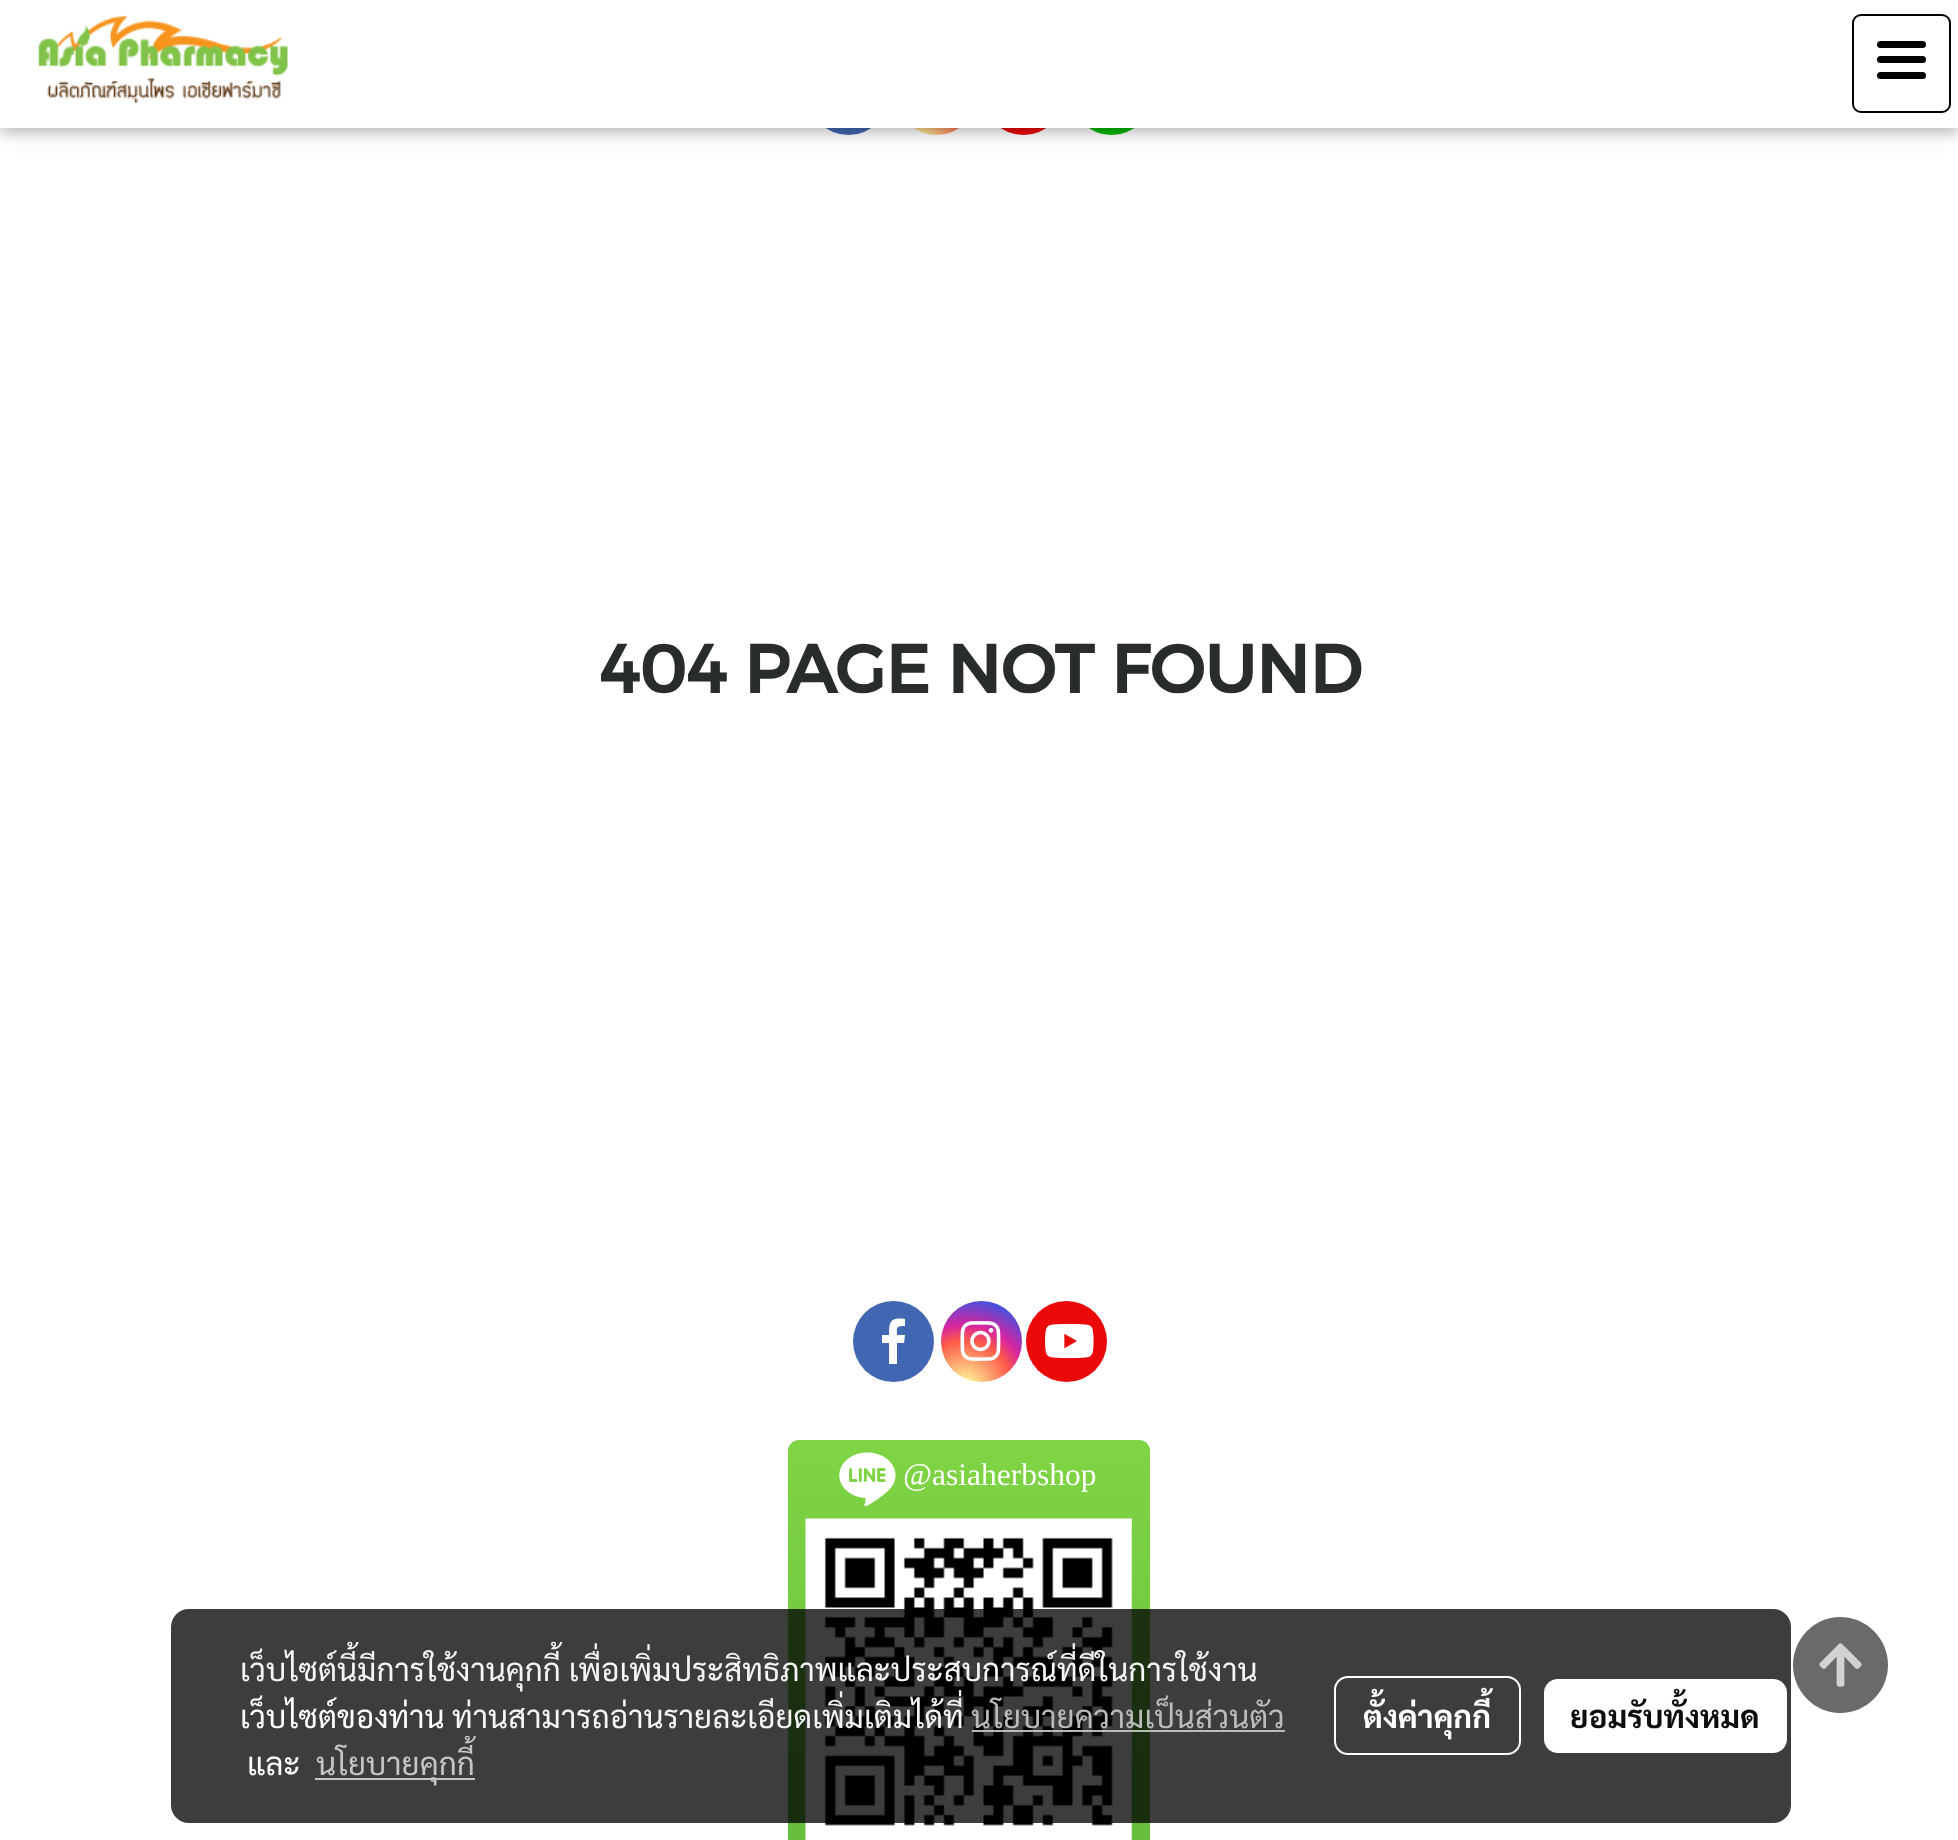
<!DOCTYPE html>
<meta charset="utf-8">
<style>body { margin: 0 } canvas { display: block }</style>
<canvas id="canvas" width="1958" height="1840"></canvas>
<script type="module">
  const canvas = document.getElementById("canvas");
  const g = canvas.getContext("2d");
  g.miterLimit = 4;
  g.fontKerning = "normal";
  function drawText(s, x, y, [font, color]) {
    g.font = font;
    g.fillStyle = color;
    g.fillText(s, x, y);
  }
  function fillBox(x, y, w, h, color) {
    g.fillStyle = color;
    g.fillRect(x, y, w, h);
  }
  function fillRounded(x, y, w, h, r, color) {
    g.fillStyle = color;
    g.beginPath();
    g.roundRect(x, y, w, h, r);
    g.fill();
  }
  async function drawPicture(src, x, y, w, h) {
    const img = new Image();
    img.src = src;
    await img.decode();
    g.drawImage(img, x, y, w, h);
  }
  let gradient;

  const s1 = ["bold 67.5px Montserrat", "#282C2D"];
  const s2 = ["31.5px Liberation Serif", "#FFFFFF"];
  const s3 = ["31.5px Sarabun", "#F5F5F5"];
  const s4 = ["31.5px Sarabun", "#FFFFFF"];
  const s5 = ["31.5px Sarabun", "#BBBBBB"];
  const s6 = ["31.5px Sarabun", "#C5C5C5"];
  const s7 = ["bold 31.5px Sarabun", "#FFFFFF"];
  const s8 = ["bold 31.5px Sarabun", "#0D0D0D"];

  fillBox(0, 0, 1958, 1840, "#FFFFFF");
  g.fillStyle = "#4267B2";
  g.beginPath();
  g.arc(848.5, 94.5, 40.5, 0, Math.PI * 2);
  g.fill();
  gradient = g.createRadialGradient(920, 141, 0, 920, 141, 104);
  gradient.addColorStop(0, "#FDF497");
  gradient.addColorStop(0.05, "#FDF497");
  gradient.addColorStop(0.45, "#FD5949");
  gradient.addColorStop(0.6, "#D6249F");
  gradient.addColorStop(0.9, "#285AEB");
  g.fillStyle = gradient;
  g.beginPath();
  g.arc(936.5, 94.5, 40.5, 0, Math.PI * 2);
  g.fill();
  g.fillStyle = "#EB0808";
  g.beginPath();
  g.arc(1023.5, 94.5, 40.5, 0, Math.PI * 2);
  g.fill();
  g.fillStyle = "#00B800";
  g.beginPath();
  g.arc(1111.5, 94.5, 40.5, 0, Math.PI * 2);
  g.fill();
  await drawPicture("pic2.png", 1107, 133, 9, 1);
  g.fillStyle = "rgba(0, 0, 0, 0.12)";
  g.filter = "blur(11px)";
  g.beginPath();
  g.rect(0, 5, 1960, 128);
  g.fill();
  g.filter = "none";
  g.fillStyle = "rgba(0, 0, 0, 0.16)";
  g.filter = "blur(5.5px)";
  g.beginPath();
  g.rect(0, 5, 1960, 128);
  g.fill();
  g.filter = "none";
  fillBox(0, 0, 1958, 128, "#FFFFFF");
  await drawPicture("pic1.png", 38, 14, 250, 90);
  g.beginPath();
  g.roundRect(1853, 15, 97, 97, 8);
  g.strokeStyle = "#000000";
  g.lineWidth = 2;
  g.stroke();
  fillRounded(1877, 56, 49, 7, 3.5, "#000000");
  fillRounded(1877, 41, 49, 7, 3.5, "#000000");
  fillRounded(1877, 72, 49, 7, 3.5, "#000000");
  drawText("404 PAGE NOT FOUND", 599, 693, s1);
  g.fillStyle = "#4267B2";
  g.beginPath();
  g.arc(893.5, 1341.5, 40.5, 0, Math.PI * 2);
  g.fill();
  g.fillStyle = "#FFFFFF";
  g.beginPath();
  g.moveTo(889, 1364);
  g.lineTo(889, 1343);
  g.lineTo(882, 1343);
  g.lineTo(882, 1335);
  g.lineTo(889, 1335);
  g.bezierCurveTo(889, 1322, 890, 1317, 905, 1319);
  g.lineTo(905, 1326);
  g.bezierCurveTo(896, 1326, 897, 1327, 897, 1335);
  g.lineTo(905, 1335);
  g.lineTo(904, 1343);
  g.lineTo(897, 1343);
  g.lineTo(897, 1364);
  g.fill();
  gradient = g.createRadialGradient(965, 1387, 0, 965, 1387, 104);
  gradient.addColorStop(0, "#FDF497");
  gradient.addColorStop(0.05, "#FDF497");
  gradient.addColorStop(0.45, "#FD5949");
  gradient.addColorStop(0.6, "#D6249F");
  gradient.addColorStop(0.9, "#285AEB");
  g.fillStyle = gradient;
  g.beginPath();
  g.arc(981.5, 1341.5, 40.5, 0, Math.PI * 2);
  g.fill();
  await drawPicture("pic3.png", 960, 1321, 41, 40);
  g.fillStyle = "#EB0808";
  g.beginPath();
  g.arc(1066.5, 1341.5, 40.5, 0, Math.PI * 2);
  g.fill();
  await drawPicture("pic4.png", 1045, 1323, 49, 36);
  gradient = g.createLinearGradient(969, 1440, 969, 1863);
  gradient.addColorStop(0, "#80D544");
  gradient.addColorStop(1, "#65BC3E");
  g.fillStyle = gradient;
  g.beginPath();
  g.roundRect(788, 1440, 362, 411, 11);
  g.fill();
  await drawPicture("pic5.png", 839, 1452, 57, 55);
  drawText("@asiaherbshop", 903, 1485, s2);
  await drawPicture("pic6.png", 805, 1518, 327, 322);
  fillRounded(171, 1609, 1620, 214, 18, "rgba(0, 0, 0, 0.76)");
  drawText("เว็บไซต์นี้มีการใช้งานคุกกี้ เพื่อเพิ่มประสิทธิภาพและประสบการณ์ที่ดีในการใช้งาน", 240, 1681, s3);
  drawText("เว็บไซต์ของท่าน", 240, 1728, s4);
  drawText("ท่านสามารถอ่านรายละเอียดเพิ่มเติมได้ที่", 452, 1728, s3);
  drawText("นโยบายความเป็นส่วนตัว", 971, 1728, s5);
  fillBox(972, 1730, 313, 2, "rgba(194, 194, 194, 0.95)");
  drawText("และ", 247, 1775, s4);
  fillBox(315, 1778, 160, 2, "#C5C5C5");
  drawText("นโยบายคุกกี้", 316, 1775, s6);
  g.beginPath();
  g.roundRect(1335, 1677, 185, 77, 13);
  g.strokeStyle = "#FFFFFF";
  g.stroke();
  drawText("ตั้งค่าคุกกี้", 1363, 1728, s7);
  fillRounded(1544, 1679, 243, 74, 14, "#FFFFFF");
  drawText("ยอมรับทั้งหมด", 1570, 1728, s8);
  g.fillStyle = "#6B6A6A";
  g.beginPath();
  g.moveTo(1840, 1617);
  g.bezierCurveTo(1814, 1617, 1793, 1639, 1793, 1665);
  g.bezierCurveTo(1793, 1691, 1814, 1713, 1840, 1713);
  g.bezierCurveTo(1867, 1713, 1888, 1691, 1888, 1665);
  g.bezierCurveTo(1888, 1639, 1867, 1617, 1840, 1617);
  g.closePath();
  g.fill();
  await drawPicture("pic7.png", 1819, 1643, 43, 44);
</script>
